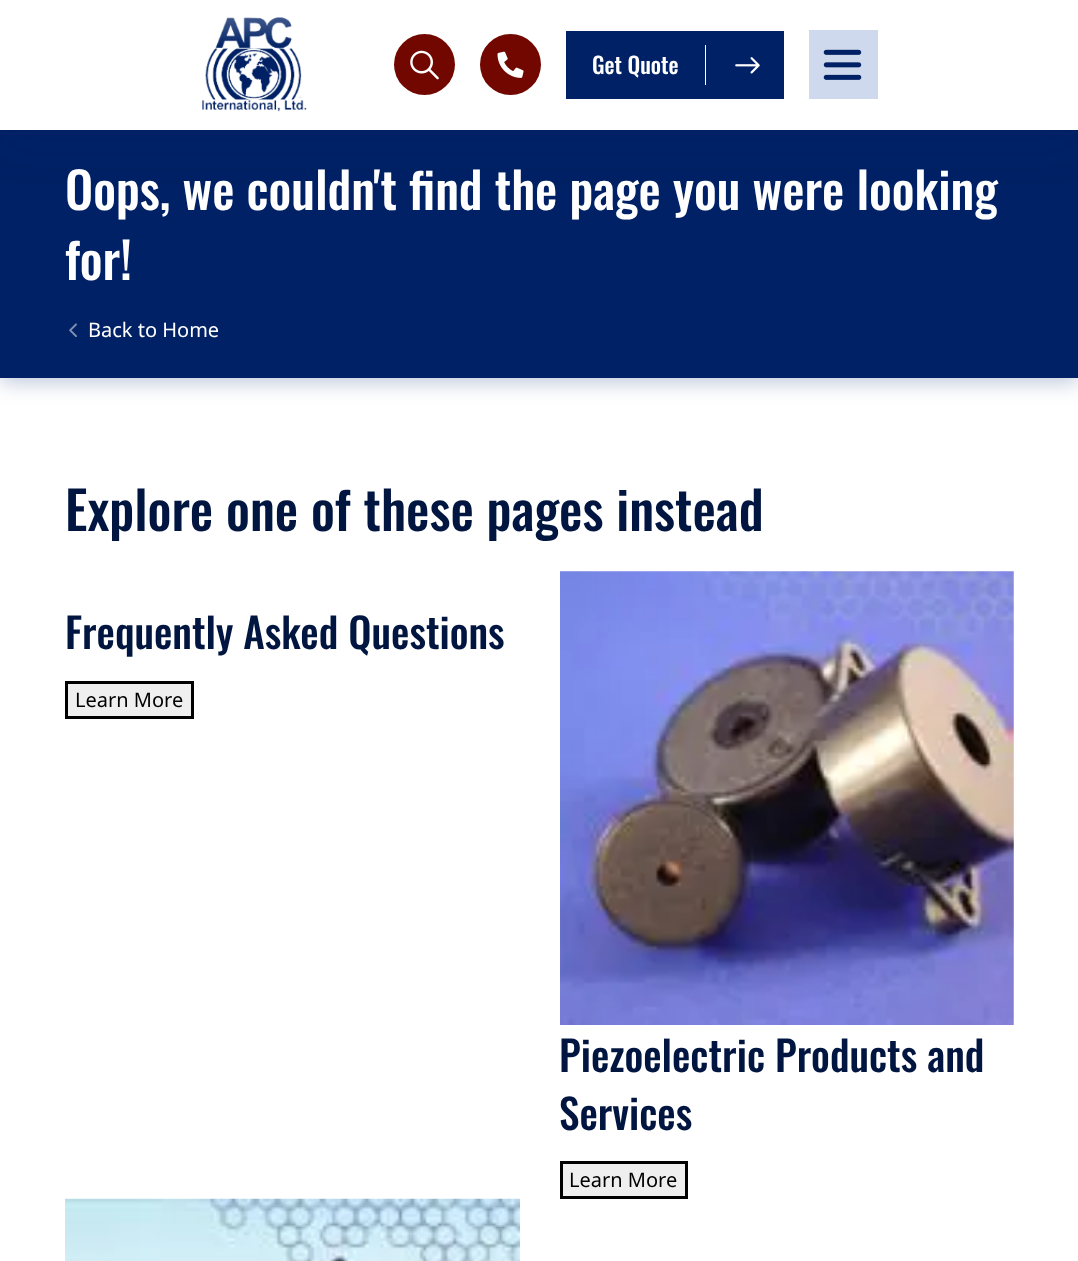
<!DOCTYPE html>
<meta charset="utf-8">
<style>body { margin: 0 } canvas { display: block }</style>
<canvas id="canvas" width="1078" height="1261"></canvas>
<script type="module">
  const canvas = document.getElementById("canvas");
  const g = canvas.getContext("2d");
  g.miterLimit = 4;
  g.fontKerning = "normal";
  function drawText(s, x, y, [font, color]) {
    g.font = font;
    g.fillStyle = color;
    g.fillText(s, x, y);
  }
  function fillBox(x, y, w, h, color) {
    g.fillStyle = color;
    g.fillRect(x, y, w, h);
  }
  async function drawPicture(src, x, y, w, h) {
    const img = new Image();
    img.src = src;
    await img.decode();
    g.drawImage(img, x, y, w, h);
  }

  const s1 = ["500 22.5px Oswald", "#FFFFFF"];
  const s2 = ["500 50px Oswald", "#FFFFFF"];
  const s3 = ["20px Noto Sans", "#FFFFFF"];
  const s4 = ["500 52.5px Oswald", "#00153F"];
  const s5 = ["500 41.25px Oswald", "#00153F"];
  const s6 = ["20px Noto Sans", "#000000"];

  fillBox(0, 0, 1078, 1261, "#FFFFFF");
  g.fillStyle = "rgba(0, 37, 112, 0.29)";
  g.filter = "blur(11px)";
  g.beginPath();
  g.rect(0, 134, 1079, 247);
  g.fill();
  g.filter = "none";
  fillBox(0, 130, 1078, 248, "#002165");
  g.fillStyle = "rgba(0, 37, 112, 0.16)";
  g.filter = "blur(25px)";
  g.beginPath();
  g.rect(0, 4, 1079, 130);
  g.fill();
  g.filter = "none";
  fillBox(0, 0, 1078, 130, "#FFFFFF");
  await drawPicture("pic1.png", 202, 17, 105, 95);
  g.fillStyle = "#720700";
  g.beginPath();
  g.arc(424.5, 64.5, 30.5, 0, Math.PI * 2);
  g.fill();
  await drawPicture("pic2.png", 410, 50, 29, 30);
  g.beginPath();
  g.arc(510.5, 64.5, 30.5, 0, Math.PI * 2);
  g.fill();
  await drawPicture("pic3.png", 497, 51, 27, 27);
  fillBox(566, 31, 218, 68, "#002165");
  drawText("Get Quote", 592, 74, s1);
  fillBox(705, 45, 1, 40, "#FFFFFF");
  await drawPicture("pic4.png", 735, 57, 25, 17);
  fillBox(809, 30, 69, 69, "#CED9ED");
  await drawPicture("pic5.png", 823, 49, 39, 31);
  drawText("Oops, we couldn't find the page you were looking", 65, 210, s2);
  drawText("for!", 65, 280, s2);
  await drawPicture("pic6.png", 69, 323, 8, 14);
  drawText("Back to Home", 88, 337, s3);
  drawText("Explore one of these pages instead", 65, 531, s4);
  drawText("Frequently Asked Questions", 65, 649, s5);
  g.fillStyle = "#EFEFEF";
  g.beginPath();
  g.rect(66.5, 682.5, 126, 35);
  g.fill();
  g.strokeStyle = "#000000";
  g.lineWidth = 3;
  g.stroke();
  drawText("Learn More", 75, 707, s6);
  await drawPicture("pic7.png", 560, 571, 454, 454);
  drawText("Piezoelectric Products and", 559, 1072, s5);
  drawText("Services", 559, 1130, s5);
  g.fillStyle = "#EFEFEF";
  g.beginPath();
  g.rect(561.5, 1162.5, 125, 35);
  g.fill();
  g.stroke();
  drawText("Learn More", 569, 1187, s6);
  await drawPicture("pic8.png", 65, 1198, 455, 63);
</script>
